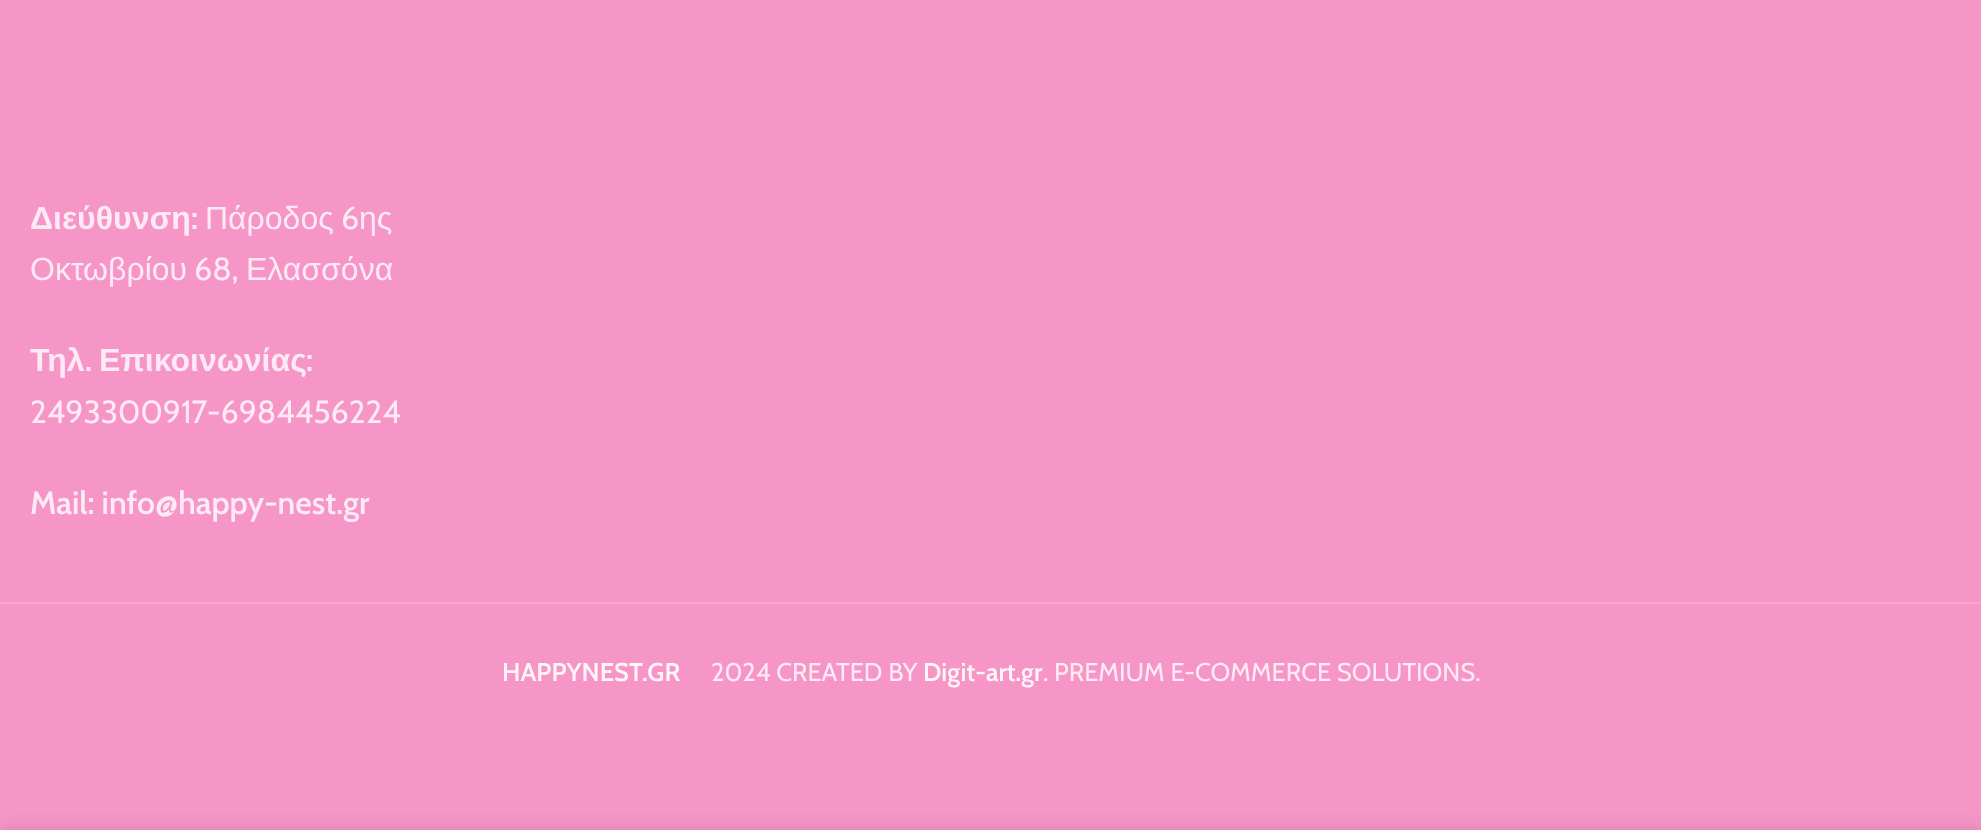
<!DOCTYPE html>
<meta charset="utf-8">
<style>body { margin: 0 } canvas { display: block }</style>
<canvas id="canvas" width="1981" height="830"></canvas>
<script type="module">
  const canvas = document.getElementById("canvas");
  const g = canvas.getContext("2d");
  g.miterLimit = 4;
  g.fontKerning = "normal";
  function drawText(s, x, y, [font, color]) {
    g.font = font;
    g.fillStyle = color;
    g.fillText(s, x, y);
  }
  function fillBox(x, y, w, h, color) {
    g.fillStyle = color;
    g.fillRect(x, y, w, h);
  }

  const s1 = ["bold 32px Liberation Sans", "#FDEAF4"];
  const s2 = ["600 32px Cabin", "#FDEAF4"];
  const s3 = ["32px Liberation Sans", "#FDEAF4"];
  const s4 = ["32px Cabin", "#FDEAF4"];
  const s5 = ["600 25.6px Cabin", "#FEF5F9"];
  const s6 = ["25.6px Cabin", "#FDEAF4"];

  fillBox(0, 0, 1981, 830, "#F596C7");
  drawText("Διεύθυνση", 30, 229, s1);
  drawText(":", 191, 229, s2);
  drawText("Πάροδος", 205, 229, s3);
  drawText("6", 341, 229, s4);
  drawText("ης", 359, 229, s3);
  drawText("Οκτωβρίου", 30, 280, s3);
  drawText("68,", 194, 280, s4);
  drawText("Ελασσόνα", 246, 280, s3);
  drawText("Τηλ", 30, 371, s1);
  drawText(".", 85, 371, s2);
  drawText("Επικοινωνίας", 99, 371, s1);
  drawText(":", 306, 371, s2);
  drawText("2493300917-6984456224", 30, 423, s4);
  drawText("Mail: info@happy-nest.gr", 30, 514, s2);
  fillBox(0, 602, 1981, 2, "#F7A6CF");
  drawText("HAPPYNEST.GR", 502, 681, s5);
  drawText("2024 CREATED BY", 711, 681, s6);
  drawText("Digit-art.gr", 923, 681, s5);
  drawText(". PREMIUM E-COMMERCE SOLUTIONS.", 1043, 681, s6);
  g.fillStyle = "rgba(0, 0, 0, 0.14)";
  g.filter = "blur(9px)";
  g.beginPath();
  g.rect(0, 830, 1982, 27);
  g.fill();
  g.filter = "none";
</script>
